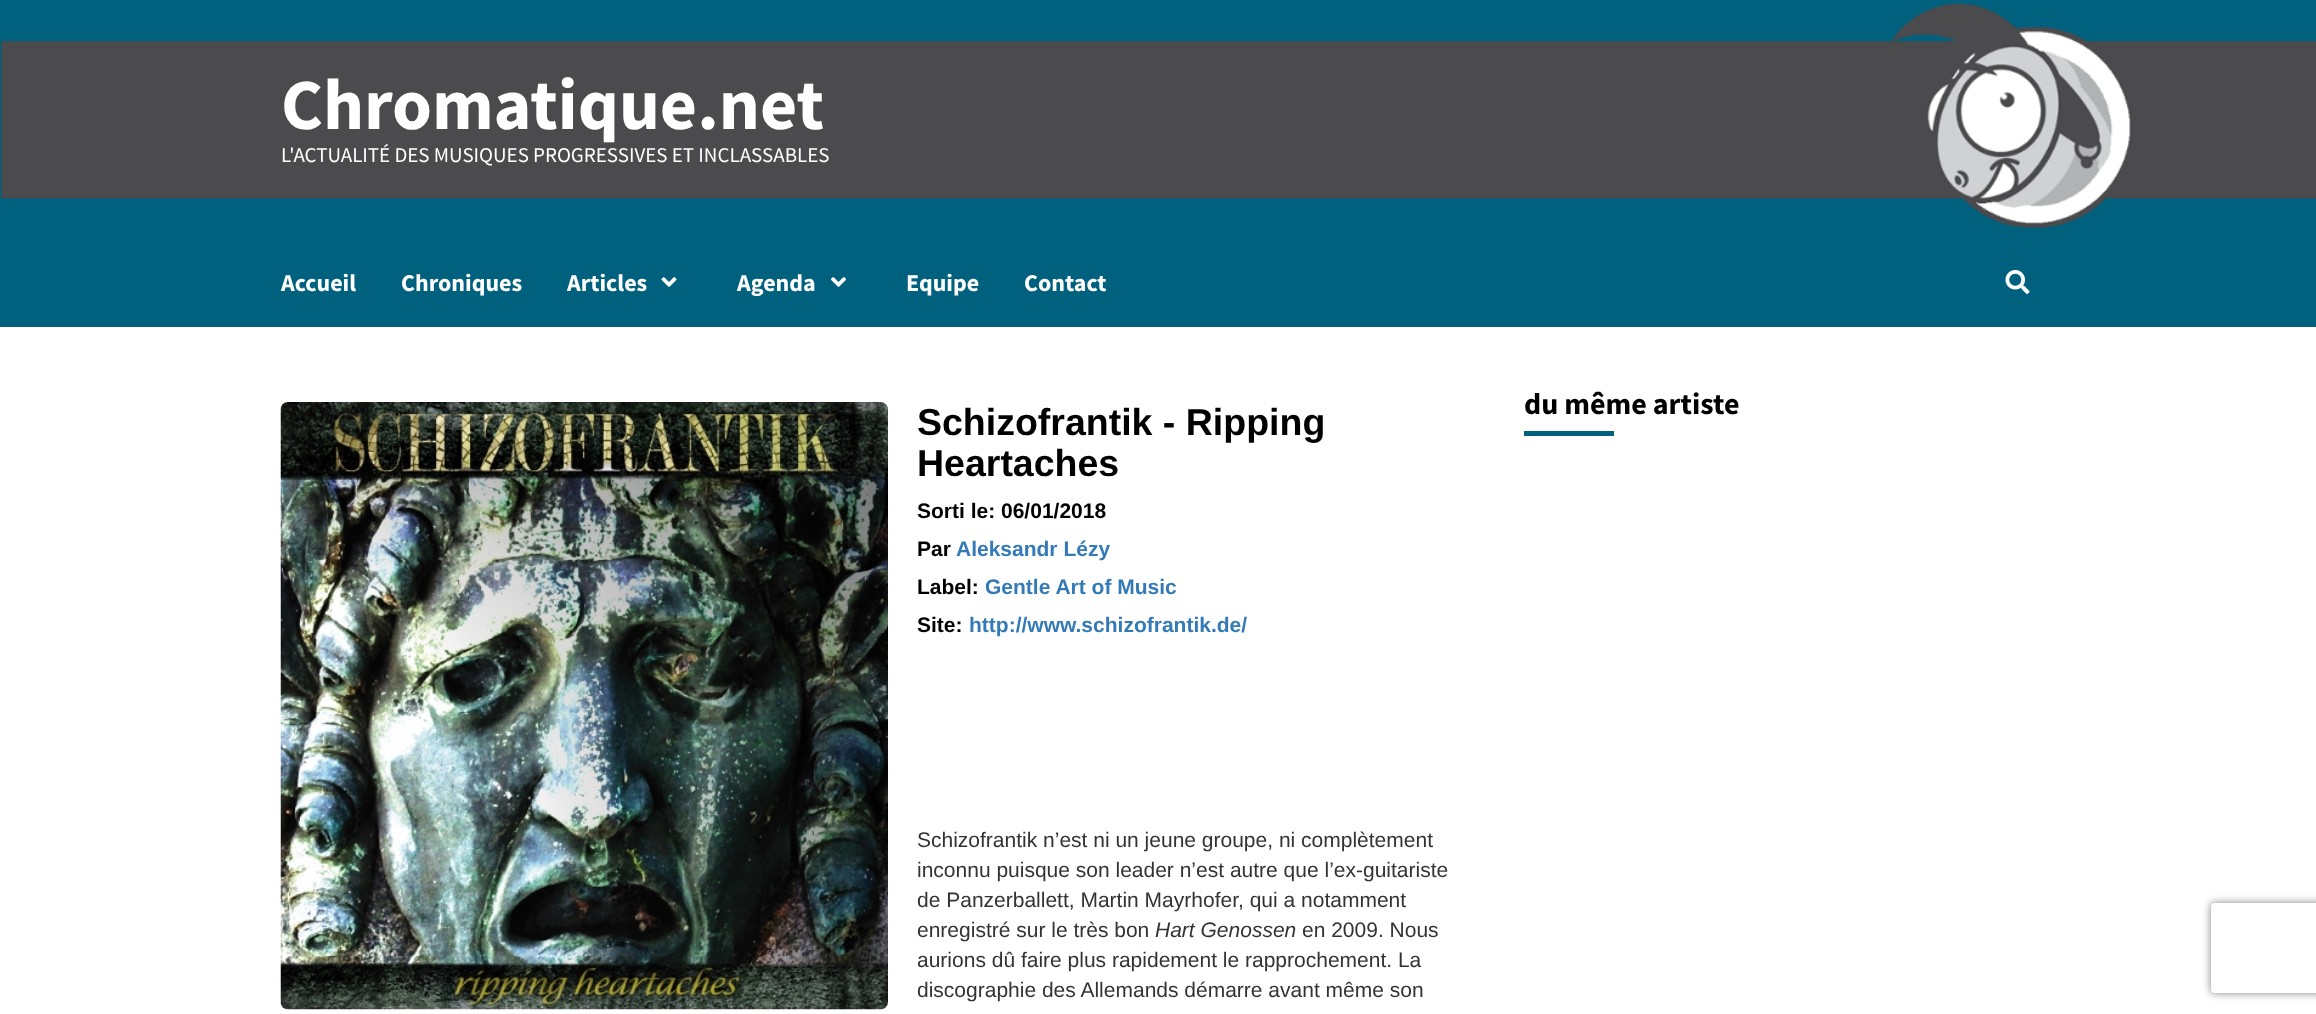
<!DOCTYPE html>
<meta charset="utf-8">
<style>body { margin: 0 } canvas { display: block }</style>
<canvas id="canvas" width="2316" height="1014"></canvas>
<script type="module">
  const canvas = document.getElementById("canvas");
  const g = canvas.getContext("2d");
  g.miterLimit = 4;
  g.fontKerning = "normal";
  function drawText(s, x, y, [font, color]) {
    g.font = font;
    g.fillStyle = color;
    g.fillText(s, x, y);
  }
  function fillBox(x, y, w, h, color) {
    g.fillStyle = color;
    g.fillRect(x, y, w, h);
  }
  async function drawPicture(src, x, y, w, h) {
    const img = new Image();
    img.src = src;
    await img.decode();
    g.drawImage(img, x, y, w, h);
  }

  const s1 = ["bold 72px Source Sans Pro", "#FFFFFF"];
  const s2 = ["21px Source Sans Pro", "#FFFFFF"];
  const s3 = ["bold 24px Source Sans Pro", "#FFFFFF"];
  const s4 = ["bold 30px Source Sans Pro", "#000000"];
  const s5 = ["bold 37.5px Liberation Sans", "#000000"];
  const s6 = ["bold 21px Liberation Sans", "#000000"];
  const s7 = ["bold 21px Liberation Sans", "#337AB7"];
  const s8 = ["21px Liberation Sans", "#333333"];
  const s9 = ["italic 21px Liberation Sans", "#333333"];

  fillBox(0, 0, 2316, 1014, "#FFFFFF");
  await drawPicture("pic1.png", 0, 0, 2316, 237);
  drawText("Chromatique.net", 281, 129, s1);
  drawText("L'ACTUALITÉ DES MUSIQUES PROGRESSIVES ET INCLASSABLES", 281, 162, s2);
  fillBox(0, 237, 2316, 90, "#00617E");
  drawText("Accueil", 281, 291, s3);
  drawText("Chroniques", 401, 291, s3);
  drawText("Articles", 567, 291, s3);
  await drawPicture("pic2.png", 661, 277, 16, 10);
  drawText("Agenda", 737, 291, s3);
  await drawPicture("pic3.png", 831, 277, 15, 10);
  drawText("Equipe", 906, 291, s3);
  drawText("Contact", 1024, 291, s3);
  await drawPicture("pic4.png", 2005, 270, 25, 24);
  drawText("du même artiste", 1524, 414, s4);
  fillBox(1524, 431, 90, 5, "#00617E");
  await drawPicture("pic5.png", 280, 402, 608, 608);
  drawText("Schizofrantik - Ripping", 917, 435, s5);
  drawText("Heartaches", 917, 476, s5);
  drawText("Sorti le: 06/01/2018", 917, 518, s6);
  drawText("Par", 917, 556, s6);
  drawText("Aleksandr Lézy", 956, 556, s7);
  drawText("Label:", 917, 594, s6);
  drawText("Gentle Art of Music", 985, 594, s7);
  drawText("Site:", 917, 632, s6);
  drawText("http://www.schizofrantik.de/", 969, 632, s7);
  drawText("Schizofrantik n’est ni un jeune groupe, ni complètement", 917, 847, s8);
  drawText("inconnu puisque son leader n’est autre que l’ex-guitariste", 917, 877, s8);
  drawText("de Panzerballett, Martin Mayrhofer, qui a notamment", 917, 907, s8);
  drawText("enregistré sur le très bon", 917, 937, s8);
  drawText("Hart Genossen", 1155, 937, s9);
  drawText("en 2009. Nous", 1302, 937, s8);
  drawText("aurions dû faire plus rapidement le rapprochement. La", 917, 967, s8);
  drawText("discographie des Allemands démarre avant même son", 917, 997, s8);
  g.save();
  g.beginPath();
  g.moveTo(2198, 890);
  g.lineTo(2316, 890);
  g.lineTo(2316, 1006);
  g.lineTo(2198, 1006);
  g.closePath();
  g.moveTo(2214, 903);
  g.lineTo(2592, 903);
  g.bezierCurveTo(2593.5, 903, 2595, 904.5, 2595, 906);
  g.lineTo(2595, 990);
  g.bezierCurveTo(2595, 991.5, 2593.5, 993, 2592, 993);
  g.lineTo(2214, 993);
  g.bezierCurveTo(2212.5, 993, 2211, 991.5, 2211, 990);
  g.lineTo(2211, 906);
  g.bezierCurveTo(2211, 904.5, 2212.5, 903, 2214, 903);
  g.closePath();
  g.clip("evenodd");
  g.fillStyle = "#808080";
  g.filter = "blur(4px)";
  g.beginPath();
  g.roundRect(2211, 903, 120, 90, 3);
  g.fill();
  g.filter = "none";
  g.restore();
</script>
